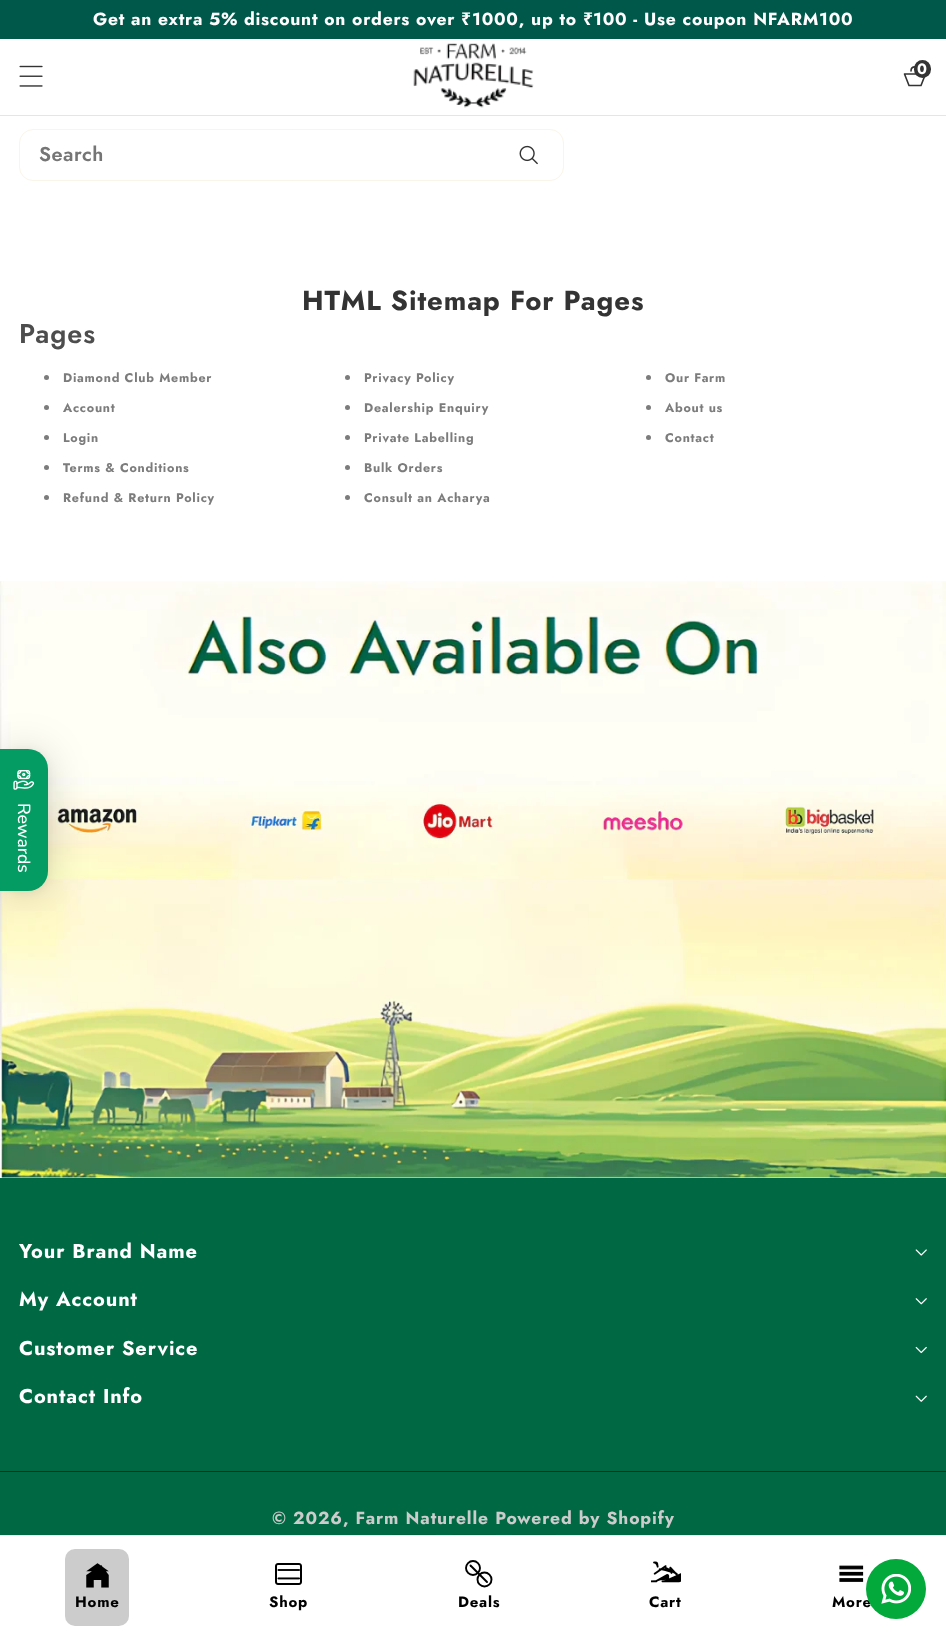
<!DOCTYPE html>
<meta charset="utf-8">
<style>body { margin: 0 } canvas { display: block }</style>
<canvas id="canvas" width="946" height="1638"></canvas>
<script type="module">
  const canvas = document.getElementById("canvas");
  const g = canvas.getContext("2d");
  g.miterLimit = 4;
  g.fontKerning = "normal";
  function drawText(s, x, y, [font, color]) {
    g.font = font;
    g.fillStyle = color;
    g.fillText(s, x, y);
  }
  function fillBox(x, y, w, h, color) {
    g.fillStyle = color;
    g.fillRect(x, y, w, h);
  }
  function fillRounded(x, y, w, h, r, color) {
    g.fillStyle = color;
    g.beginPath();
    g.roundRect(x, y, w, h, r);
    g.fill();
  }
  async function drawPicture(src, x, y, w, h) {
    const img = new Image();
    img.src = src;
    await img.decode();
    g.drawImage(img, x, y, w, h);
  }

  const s1 = ["bold 17.5px Jost", "#FFFFFF"];
  const s2 = ["bold 17.5px Noto Sans", "#FFFFFF"];
  const s3 = ["bold 15px Jost", "#FFFFFF"];
  const s4 = ["600 20px Jost", "#757575"];
  const s5 = ["bold 27.5px Jost", "#333333"];
  const s6 = ["600 27px Jost", "#4D4D4D"];
  const s7 = ["bold 12.5px Jost", "#7C7C7C"];
  const s8 = ["bold 20px Jost", "#FFFFFF"];
  const s9 = ["bold 17.5px Jost", "#CCCCCC"];
  const s10 = ["bold 15px Jost", "#000000"];

  fillBox(0, 0, 946, 1638, "#FFFFFF");
  fillBox(0, 0, 946, 39, "#00584B");
  g.letterSpacing = "0.75px";
  drawText("Get an extra 5% discount on orders over", 93, 25, s1);
  drawText("₹", 461, 25, s2);
  drawText("1000, up to", 472, 25, s1);
  drawText("₹", 583, 25, s2);
  drawText("100 - Use coupon NFARM100", 593, 25, s1);
  await drawPicture("pic1.png", 19, 65, 24, 22);
  await drawPicture("pic2.png", 413, 43, 121, 65);
  g.beginPath();
  g.moveTo(904.5, 74);
  g.lineTo(925.5, 74);
  g.lineTo(921, 85.5);
  g.lineTo(909, 85.5);
  g.closePath();
  g.moveTo(919, 71);
  g.bezierCurveTo(919, 65.5, 911, 65.5, 911, 71);
  g.strokeStyle = "#333333";
  g.lineWidth = 1.6;
  g.lineCap = "round";
  g.lineJoin = "round";
  g.stroke();
  fillRounded(914, 60, 17, 18, 8.5, "#333333");
  drawText("0", 917, 74, s3);
  fillBox(0, 115, 946, 1, "#E5E5E5");
  await drawPicture("pic3.png", 519, 145, 19, 20);
  g.beginPath();
  g.roundRect(19.5, 129.5, 544, 51, 13.5);
  g.strokeStyle = "#FAF5E9";
  g.lineWidth = 1;
  g.lineJoin = "miter";
  g.stroke();
  g.letterSpacing = "0.5px";
  drawText("Search", 39, 161, s4);
  g.letterSpacing = "0.9px";
  drawText("HTML Sitemap For Pages", 302, 310, s5);
  drawText("Pages", 19, 343, s6);
  g.fillStyle = "#7C7C7C";
  g.beginPath();
  g.arc(46.5, 377.5, 2.5, 0, Math.PI * 2);
  g.fill();
  g.letterSpacing = "0.75px";
  drawText("Diamond Club Member", 63, 382, s7);
  g.beginPath();
  g.arc(347.5, 377.5, 2.5, 0, Math.PI * 2);
  g.fill();
  drawText("Privacy Policy", 364, 382, s7);
  g.beginPath();
  g.arc(648.5, 377.5, 2.5, 0, Math.PI * 2);
  g.fill();
  drawText("Our Farm", 665, 382, s7);
  g.beginPath();
  g.arc(46.5, 407.5, 2.5, 0, Math.PI * 2);
  g.fill();
  drawText("Account", 63, 412, s7);
  g.beginPath();
  g.arc(347.5, 407.5, 2.5, 0, Math.PI * 2);
  g.fill();
  drawText("Dealership Enquiry", 364, 412, s7);
  g.beginPath();
  g.arc(648.5, 407.5, 2.5, 0, Math.PI * 2);
  g.fill();
  drawText("About us", 665, 412, s7);
  g.beginPath();
  g.arc(46.5, 437.5, 2.5, 0, Math.PI * 2);
  g.fill();
  drawText("Login", 63, 442, s7);
  g.beginPath();
  g.arc(347.5, 437.5, 2.5, 0, Math.PI * 2);
  g.fill();
  drawText("Private Labelling", 364, 442, s7);
  g.beginPath();
  g.arc(648.5, 437.5, 2.5, 0, Math.PI * 2);
  g.fill();
  drawText("Contact", 665, 442, s7);
  g.beginPath();
  g.arc(46.5, 467.5, 2.5, 0, Math.PI * 2);
  g.fill();
  drawText("Terms & Conditions", 63, 472, s7);
  g.beginPath();
  g.arc(347.5, 467.5, 2.5, 0, Math.PI * 2);
  g.fill();
  drawText("Bulk Orders", 364, 472, s7);
  g.beginPath();
  g.arc(46.5, 497.5, 2.5, 0, Math.PI * 2);
  g.fill();
  drawText("Refund & Return Policy", 63, 502, s7);
  g.beginPath();
  g.arc(347.5, 497.5, 2.5, 0, Math.PI * 2);
  g.fill();
  drawText("Consult an Acharya", 364, 502, s7);
  await drawPicture("pic4.png", 0, 581, 946, 597);
  g.fillStyle = "rgba(0, 0, 0, 0.16)";
  g.filter = "blur(20px)";
  g.beginPath();
  g.roundRect(0, 751, 48, 143, 20);
  g.fill();
  g.filter = "none";
  g.fillStyle = "rgba(0, 0, 0, 0.06)";
  g.filter = "blur(4px)";
  g.beginPath();
  g.roundRect(0, 750, 48, 143, 20);
  g.fill();
  g.filter = "none";
  g.fillStyle = "#059C63";
  g.beginPath();
  g.roundRect(0, 749, 48, 142, [0, 20, 20, 0]);
  g.fill();
  await drawPicture("pic5.png", 13, 770, 22, 20);
  g.letterSpacing = "0px";
  g.font = "500 17.5px Nunito";
  g.fillStyle = "#FFFFFF";
  g.save();
  g.translate(18, 803);
  g.rotate(90 * Math.PI / 180);
  g.fillText("Rewards", 0, 0);
  g.restore();
  fillBox(0, 1178, 946, 357, "#006944");
  g.letterSpacing = "0.9px";
  drawText("Your Brand Name", 19, 1258, s8);
  await drawPicture("pic6.png", 915, 1249, 12, 7);
  drawText("My Account", 19, 1306, s8);
  await drawPicture("pic7.png", 915, 1298, 12, 7);
  drawText("Customer Service", 19, 1355, s8);
  await drawPicture("pic8.png", 915, 1346, 12, 8);
  drawText("Contact Info", 19, 1403, s8);
  await drawPicture("pic9.png", 915, 1395, 12, 7);
  fillBox(0, 1471, 946, 1, "#222222");
  drawText("© 2026, Farm Naturelle Powered by Shopify", 272, 1524, s9);
  await drawPicture("pic10.png", 391, 1534, 45, 1);
  await drawPicture("pic10.png", 451, 1534, 45, 1);
  await drawPicture("pic10.png", 511, 1534, 45, 1);
  fillBox(0, 1535, 946, 1, "#EEEEEE");
  fillRounded(65, 1549, 64, 77, 10, "#CCCCCC");
  await drawPicture("pic11.png", 86, 1563, 23, 25);
  g.letterSpacing = "0.75px";
  drawText("Home", 75, 1607, s10);
  await drawPicture("pic12.png", 275, 1563, 27, 22);
  drawText("Shop", 269, 1607, s10);
  g.beginPath();
  g.arc(473, 1568, 7, 0, Math.PI * 2);
  g.strokeStyle = "#000000";
  g.lineWidth = 1.9;
  g.stroke();
  g.beginPath();
  g.arc(484.5, 1579.5, 7, 0, Math.PI * 2);
  g.stroke();
  g.beginPath();
  g.moveTo(470.5, 1565.5);
  g.lineTo(487, 1582);
  g.stroke();
  drawText("Deals", 458, 1607, s10);
  await drawPicture("pic13.png", 651, 1561, 30, 22);
  drawText("Cart", 649, 1607, s10);
  await drawPicture("pic14.png", 839, 1565, 25, 17);
  drawText("More", 832, 1607, s10);
  g.fillStyle = "#03A93A";
  g.beginPath();
  g.arc(896, 1589, 30, 0, Math.PI * 2);
  g.fill();
  await drawPicture("pic15.png", 881, 1574, 30, 30);
</script>
